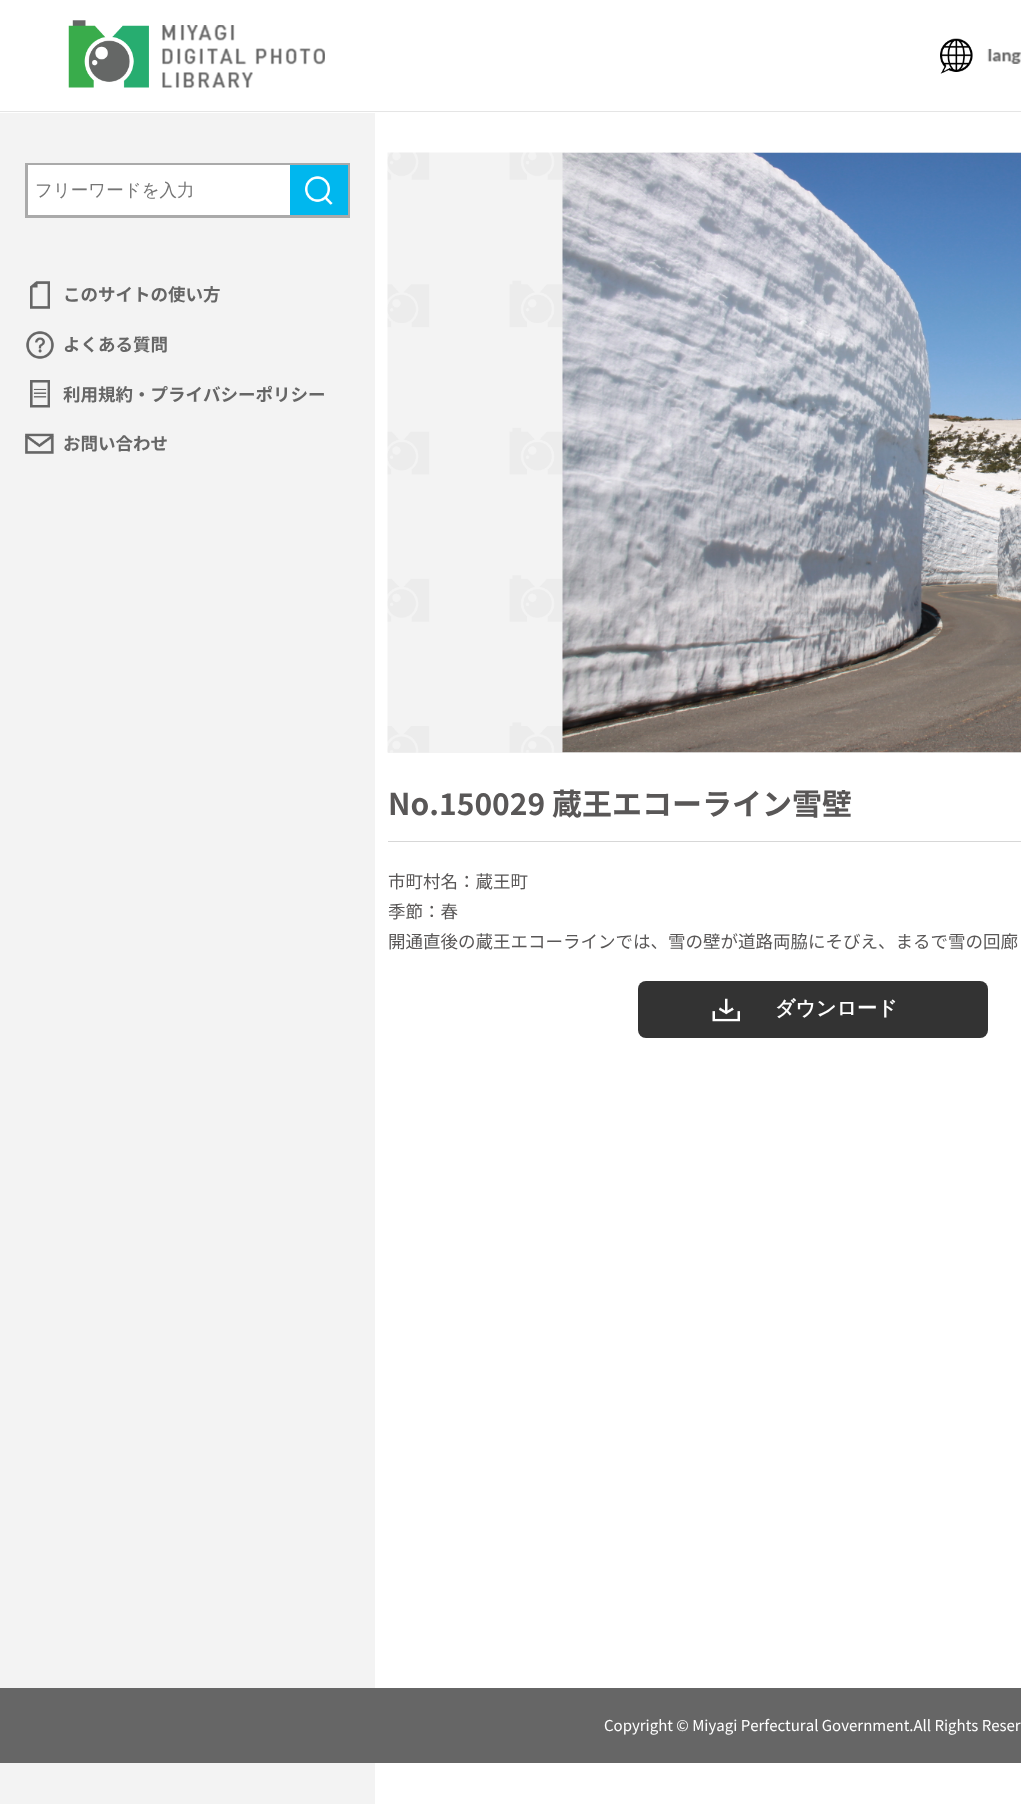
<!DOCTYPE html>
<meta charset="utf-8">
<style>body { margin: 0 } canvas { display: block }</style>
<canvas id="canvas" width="1021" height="1804"></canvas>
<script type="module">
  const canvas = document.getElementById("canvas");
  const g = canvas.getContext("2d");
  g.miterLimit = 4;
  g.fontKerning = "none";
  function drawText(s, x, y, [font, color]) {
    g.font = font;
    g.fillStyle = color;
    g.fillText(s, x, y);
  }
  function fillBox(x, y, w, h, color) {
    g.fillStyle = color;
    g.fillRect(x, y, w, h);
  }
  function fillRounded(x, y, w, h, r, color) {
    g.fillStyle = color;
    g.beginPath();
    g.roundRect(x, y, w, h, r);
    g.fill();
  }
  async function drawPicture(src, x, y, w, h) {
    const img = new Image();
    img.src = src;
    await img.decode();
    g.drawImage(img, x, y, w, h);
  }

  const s1 = ["500 17.5px WenQuanYi Zen Hei", "#757575"];
  const s2 = ["bold 17.5px Noto Sans JP", "#666666"];
  const s3 = ["bold 30px Noto Sans JP", "#595757"];
  const s4 = ["17.5px Noto Sans JP", "#595757"];
  const s5 = ["bold 20px WenQuanYi Zen Hei", "#FFFFFF"];
  const s6 = ["15px Noto Sans JP", "#FFFFFF"];

  fillBox(0, 0, 1021, 1804, "#FFFFFF");
  fillBox(0, 111, 1021, 1, "#E5E5E5");
  await drawPicture("pic1.png", 68, 20, 257, 68);
  await drawPicture("pic2.png", 940, 38, 81, 36);
  fillBox(0, 113, 375, 1691, "#F3F3F3");
  g.strokeStyle = "#AAAAAA";
  g.lineWidth = 3;
  g.strokeRect(26.5, 164.5, 322, 52);
  fillBox(28, 165, 262, 50, "#FFFFFF");
  drawText("フリーワードを入力", 35, 196, s1);
  fillBox(290, 165, 58, 50, "#00B7EE");
  await drawPicture("pic3.png", 305, 176, 28, 29);
  await drawPicture("pic4.png", 30, 281, 20, 28);
  drawText("このサイトの使い方", 63, 301, s2);
  await drawPicture("pic5.png", 26, 331, 28, 28);
  drawText("よくある質問", 63, 351, s2);
  await drawPicture("pic6.png", 30, 380, 20, 28);
  drawText("利用規約・プライバシーポリシー", 63, 401, s2);
  await drawPicture("pic7.png", 25, 433, 29, 21);
  drawText("お問い合わせ", 63, 450, s2);
  fillBox(388, 752, 633, 1, "#F3F3F3");
  await drawPicture("pic8.png", 387, 152, 634, 601);
  await drawPicture("pic9.png", 562, 152, 459, 601);
  fillBox(388, 841, 633, 1, "#D7D7D7");
  drawText("No.150029 蔵王エコーライン雪壁", 388, 815, s3);
  drawText("市町村名：蔵王町", 388, 888, s4);
  drawText("季節：春", 388, 918, s4);
  drawText("開通直後の蔵王エコーラインでは、雪の壁が道路両脇にそびえ、まるで雪の回廊", 388, 948, s4);
  fillRounded(638, 981, 350, 57, 8, "#333333");
  await drawPicture("pic10.png", 712, 998, 28, 24);
  drawText("ダウンロード", 775, 1015, s5);
  fillBox(0, 1688, 1021, 75, "#666666");
  drawText("Copyright © Miyagi Perfectural Government.All Rights Reser", 604, 1731, s6);
</script>
